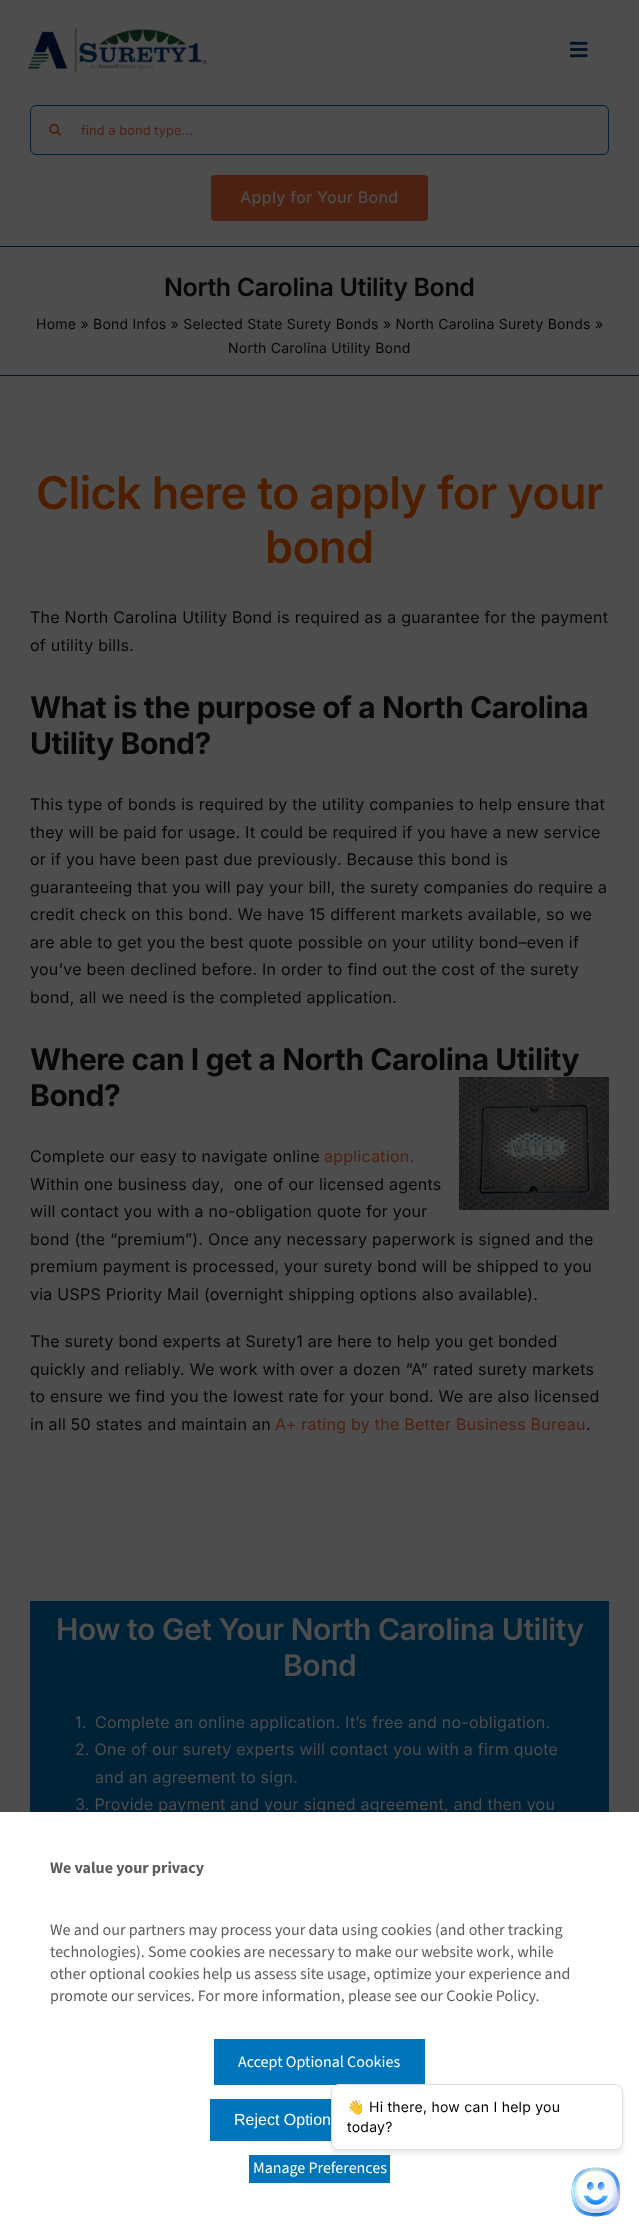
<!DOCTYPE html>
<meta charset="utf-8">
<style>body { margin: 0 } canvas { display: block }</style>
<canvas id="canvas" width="639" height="2235"></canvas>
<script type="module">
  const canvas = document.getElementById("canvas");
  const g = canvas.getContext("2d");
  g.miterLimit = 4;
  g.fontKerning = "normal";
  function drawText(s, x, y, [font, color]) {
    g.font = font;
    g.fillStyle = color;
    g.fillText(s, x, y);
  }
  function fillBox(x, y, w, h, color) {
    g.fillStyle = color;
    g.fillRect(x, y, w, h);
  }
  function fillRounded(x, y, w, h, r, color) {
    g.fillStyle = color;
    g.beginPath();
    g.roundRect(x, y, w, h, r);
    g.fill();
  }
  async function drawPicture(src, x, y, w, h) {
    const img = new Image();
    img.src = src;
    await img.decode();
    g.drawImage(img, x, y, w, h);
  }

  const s1 = ["13px Inter", "#4C2111"];
  const s2 = ["500 16px Inter", "#4D4D4D"];
  const s3 = ["600 25px Inter", "#060707"];
  const s4 = ["14px Inter", "#060707"];
  const s5 = ["600 45px Inter", "#4D1F00"];
  const s6 = ["16px Inter", "#060707"];
  const s7 = ["bold 30px Inter", "#060707"];
  const s8 = ["16px Inter", "#4C2111"];
  const s9 = ["600 30px Inter", "#4D4D4D"];
  const s10 = ["16px Inter", "#4D4D4D"];
  const s11 = ["bold 16px 'Source Sans 3'", "#5D5D5D"];
  const s12 = ["16px 'Source Sans 3'", "#5D5D5D"];
  const s13 = ["16px 'Source Sans 3'", "#FFFFFF"];
  const s14 = ["16px Liberation Sans", "#FFFFFF"];
  const s15 = ["14px Noto Color Emoji", "#000000"];
  const s16 = ["14px Inter", "#000000"];

  fillBox(0, 0, 639, 2235, "#4D4D4D");
  await drawPicture("pic1.png", 28, 28, 180, 44);
  await drawPicture("pic2.png", 570, 41, 18, 17);
  g.beginPath();
  g.roundRect(30.5, 105.5, 578, 49, 5.5);
  g.strokeStyle = "#002237";
  g.stroke();
  await drawPicture("pic3.png", 49, 123, 12, 13);
  drawText("find a bond type...", 81, 135, s1);
  fillRounded(211, 175, 217, 46, 4, "#4C2111");
  g.letterSpacing = "0.25px";
  drawText("Apply for Your Bond", 240, 203, s2);
  fillBox(0, 246, 639, 1, "#001326");
  fillBox(0, 375, 639, 1, "#001326");
  g.letterSpacing = "-0.4px";
  drawText("North Carolina Utility Bond", 164, 296, s3);
  g.letterSpacing = "0.25px";
  drawText("Home » Bond Infos » Selected State Surety Bonds » North Carolina Surety Bonds »", 36, 329, s4);
  drawText("North Carolina Utility Bond", 228, 353, s4);
  g.letterSpacing = "-0.7px";
  drawText("Click here to apply for your", 36, 509, s5);
  drawText("bond", 265, 563, s5);
  g.letterSpacing = "0.25px";
  drawText("The North Carolina Utility Bond is required as a guarantee for the payment", 30, 623, s6);
  drawText("of utility bills.", 30, 651, s6);
  g.letterSpacing = "-0.45px";
  drawText("What is the purpose of a North Carolina", 30, 718, s7);
  drawText("Utility Bond?", 30, 754, s7);
  g.letterSpacing = "0.25px";
  drawText("This type of bonds is required by the utility companies to help ensure that", 30, 810, s6);
  drawText("they will be paid for usage. It could be required if you have a new service", 30, 838, s6);
  drawText("or if you have been past due previously. Because this bond is", 30, 865, s6);
  drawText("guaranteeing that you will pay your bill, the surety companies do require a", 30, 893, s6);
  drawText("credit check on this bond. We have 15 different markets available, so we", 30, 920, s6);
  drawText("are able to get you the best quote possible on your utility bond–even if", 30, 948, s6);
  drawText("you’ve been declined before. In order to find out the cost of the surety", 30, 975, s6);
  drawText("bond, all we need is the completed application.", 30, 1003, s6);
  g.letterSpacing = "-0.45px";
  drawText("Where can I get a North Carolina Utility", 30, 1070, s7);
  drawText("Bond?", 30, 1106, s7);
  await drawPicture("pic4.png", 459, 1077, 150, 133);
  g.letterSpacing = "0.25px";
  drawText("Complete our easy to navigate online", 30, 1162, s6);
  drawText("application.", 324, 1162, s8);
  drawText("Within one business day,  one of our licensed agents", 30, 1190, s6);
  drawText("will contact you with a no-obligation quote for your", 30, 1217, s6);
  drawText("bond (the “premium”). Once any necessary paperwork is signed and the", 30, 1245, s6);
  drawText("premium payment is processed, your surety bond will be shipped to you", 30, 1272, s6);
  drawText("via USPS Priority Mail (overnight shipping options also available).", 30, 1300, s6);
  drawText("The surety bond experts at Surety1 are here to help you get bonded", 30, 1347, s6);
  drawText("quickly and reliably. We work with over a dozen “A” rated surety markets", 30, 1375, s6);
  drawText("to ensure we find you the lowest rate for your bond. We are also licensed", 30, 1402, s6);
  drawText("in all 50 states and maintain an", 30, 1430, s6);
  drawText("A+ rating by the Better Business Bureau", 275, 1430, s8);
  drawText(".", 586, 1430, s6);
  fillBox(30, 1601, 579, 211, "#002237");
  g.letterSpacing = "-0.45px";
  drawText("How to Get Your North Carolina Utility", 56, 1640, s9);
  drawText("Bond", 283, 1676, s9);
  g.letterSpacing = "0.25px";
  drawText("1.", 75, 1728, s10);
  drawText("Complete an online application. It’s free and no-obligation.", 95, 1728, s10);
  drawText("2. One of our surety experts will contact you with a firm quote", 75, 1755, s10);
  drawText("and an agreement to sign.", 95, 1783, s10);
  drawText("3. Provide payment and your signed agreement, and then you", 75, 1810, s10);
  fillBox(0, 1812, 639, 423, "#FFFFFF");
  g.letterSpacing = "0px";
  drawText("We value your privacy", 50, 1873, s11);
  drawText("We and our partners may process your data using cookies (and other tracking", 50, 1935, s12);
  drawText("technologies). Some cookies are necessary to make our website work, while", 50, 1957, s12);
  drawText("other optional cookies help us assess site usage, optimize your experience and", 50, 1979, s12);
  drawText("promote our services. For more information, please see our Cookie Policy.", 50, 2001, s12);
  fillBox(214, 2039, 211, 46, "#0075BC");
  drawText("Accept Optional Cookies", 238, 2067, s13);
  fillBox(210, 2099, 121, 42, "#0075BC");
  drawText("Reject Option", 234, 2125, s14);
  fillBox(249, 2155, 141, 28, "#0075BC");
  drawText("Manage Preferences", 253, 2173, s13);
  g.fillStyle = "rgba(0, 0, 0, 0.08)";
  g.filter = "blur(2px)";
  g.beginPath();
  g.roundRect(331, 2088, 292, 66, 8);
  g.fill();
  g.filter = "none";
  g.fillStyle = "#FFFFFF";
  g.beginPath();
  g.roundRect(331.5, 2084.5, 291, 65, 7.5);
  g.fill();
  g.strokeStyle = "#DDDDDD";
  g.stroke();
  g.letterSpacing = "0.25px";
  drawText("👋", 347, 2112, s15);
  drawText("Hi there, how can I help you", 369, 2112, s16);
  drawText("today?", 347, 2132, s16);
  await drawPicture("pic5.png", 571, 2167, 50, 50);
</script>
